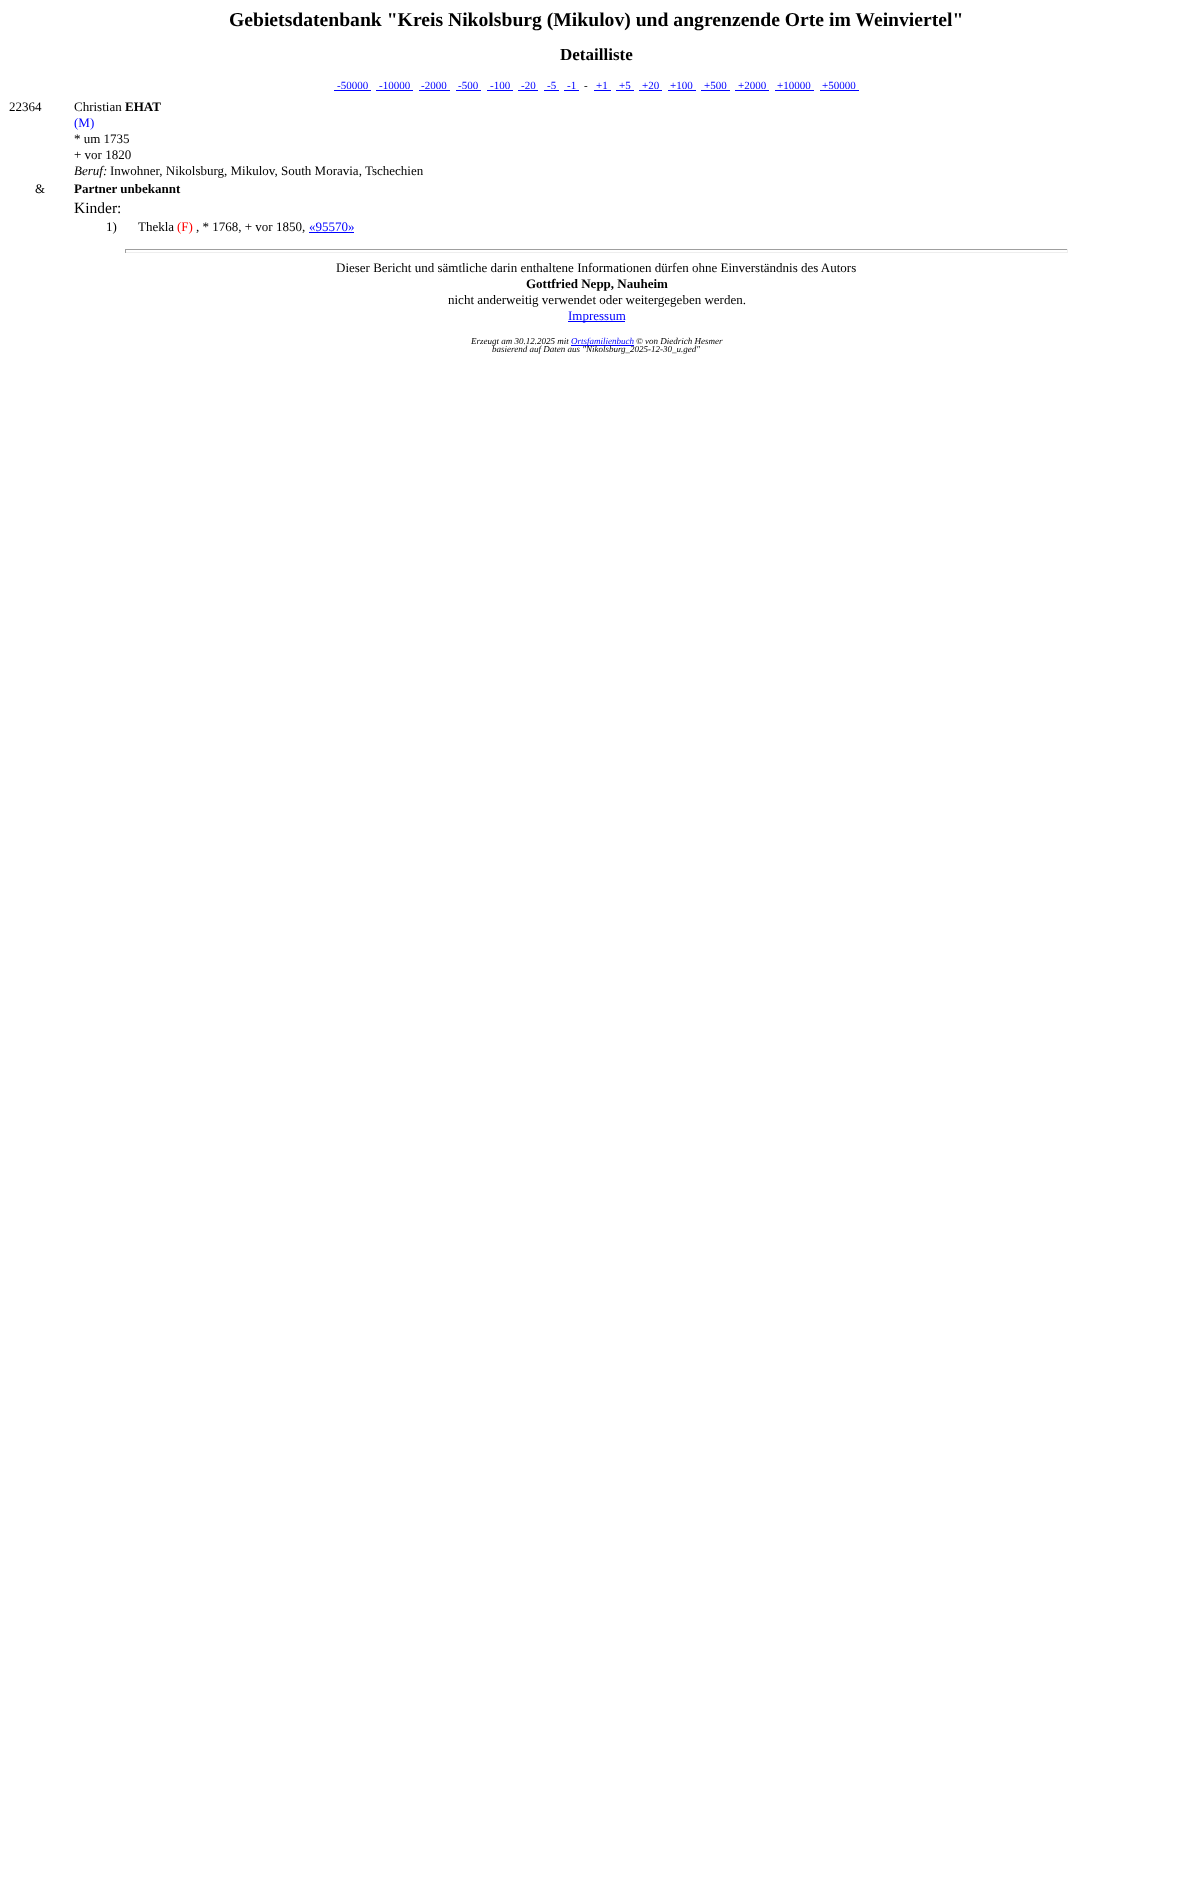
<!DOCTYPE html>
<meta charset="utf-8">
<style>body { margin: 0 } canvas { display: block }</style>
<canvas id="canvas" width="1193" height="1883"></canvas>
<script type="module">
  const canvas = document.getElementById("canvas");
  const g = canvas.getContext("2d");
  g.miterLimit = 4;
  g.fontKerning = "normal";
  function drawText(s, x, y, [font, color]) {
    g.font = font;
    g.fillStyle = color;
    g.fillText(s, x, y);
  }
  function fillBox(x, y, w, h, color) {
    g.fillStyle = color;
    g.fillRect(x, y, w, h);
  }

  const s1 = ["bold 19.65px Liberation Serif", "#000000"];
  const s2 = ["bold 17px Liberation Serif", "#000000"];
  const s3 = ["11px Liberation Serif", "#0000FF"];
  const s4 = ["11px Liberation Serif", "#000000"];
  const s5 = ["13px Liberation Serif", "#000000"];
  const s6 = ["bold 13px Liberation Serif", "#000000"];
  const s7 = ["13px Liberation Serif", "#0000FF"];
  const s8 = ["italic 13px Liberation Serif", "#000000"];
  const s9 = ["15.5px Liberation Serif", "#000000"];
  const s10 = ["13px Liberation Serif", "#FF0000"];
  const s11 = ["italic 9px Liberation Serif", "#000000"];
  const s12 = ["italic 9px Liberation Serif", "#0000FF"];

  fillBox(0, 0, 1193, 1883, "#FFFFFF");
  drawText("Gebietsdatenbank \"Kreis Nikolsburg (Mikulov) und angrenzende Orte im Weinviertel\"", 229, 26, s1);
  drawText("Detailliste", 560, 60, s2);
  drawText("-50000", 337, 89, s3);
  fillBox(334, 90, 37, 1, "#0000FF");
  drawText("-10000", 379, 89, s3);
  fillBox(376, 90, 37, 1, "#0000FF");
  drawText("-2000", 421, 89, s3);
  fillBox(419, 90, 31, 1, "#0000FF");
  drawText("-500", 458, 89, s3);
  fillBox(456, 90, 25, 1, "#0000FF");
  drawText("-100", 490, 89, s3);
  fillBox(487, 90, 26, 1, "#0000FF");
  drawText("-20", 521, 89, s3);
  fillBox(518, 90, 20, 1, "#0000FF");
  drawText("-5", 547, 89, s3);
  fillBox(544, 90, 15, 1, "#0000FF");
  drawText("-1", 567, 89, s3);
  fillBox(564, 90, 15, 1, "#0000FF");
  drawText("-", 584, 89, s4);
  drawText("+1", 596, 89, s3);
  fillBox(594, 90, 17, 1, "#0000FF");
  drawText("+5", 619, 89, s3);
  fillBox(616, 90, 18, 1, "#0000FF");
  drawText("+20", 642, 89, s3);
  fillBox(639, 90, 23, 1, "#0000FF");
  drawText("+100", 670, 89, s3);
  fillBox(668, 90, 28, 1, "#0000FF");
  drawText("+500", 704, 89, s3);
  fillBox(701, 90, 29, 1, "#0000FF");
  drawText("+2000", 738, 89, s3);
  fillBox(735, 90, 34, 1, "#0000FF");
  drawText("+10000", 777, 89, s3);
  fillBox(775, 90, 39, 1, "#0000FF");
  drawText("+50000", 822, 89, s3);
  fillBox(820, 90, 39, 1, "#0000FF");
  drawText("22364", 9, 111, s5);
  drawText("Christian", 74, 111, s5);
  drawText("EHAT", 125, 111, s6);
  drawText("(M)", 74, 127, s7);
  drawText("* um 1735", 74, 143, s5);
  drawText("+ vor 1820", 74, 159, s5);
  drawText("Beruf:", 74, 175, s8);
  drawText("Inwohner, Nikolsburg, Mikulov, South Moravia, Tschechien", 110, 175, s5);
  drawText("&", 35, 193, s5);
  drawText("Partner unbekannt", 74, 193, s6);
  drawText("Kinder:", 74, 213, s9);
  drawText("1)", 106, 231, s5);
  drawText("Thekla", 138, 231, s5);
  drawText("(F)", 177, 231, s10);
  drawText(", * 1768, + vor 1850,", 196, 231, s5);
  drawText("«95570»", 309, 231, s7);
  fillBox(309, 232, 45, 1, "#0000FF");
  fillBox(125, 249, 943, 1, "#9F9F9F");
  fillBox(1067, 249, 1, 4, "#EEEEEE");
  fillBox(125, 252, 943, 1, "#EEEEEE");
  fillBox(125, 249, 1, 4, "#9F9F9F");
  drawText("Dieser Bericht und sämtliche darin enthaltene Informationen dürfen ohne Einverständnis des Autors", 336, 272, s5);
  drawText("Gottfried Nepp, Nauheim", 526, 288, s6);
  drawText("nicht anderweitig verwendet oder weitergegeben werden.", 448, 304, s5);
  fillBox(568, 321, 57, 1, "#0000FF");
  drawText("Impressum", 568, 320, s7);
  drawText("Erzeugt am 30.12.2025 mit", 471, 344, s11);
  fillBox(571, 345, 63, 1, "#0000FF");
  drawText("Ortsfamilienbuch", 571, 344, s12);
  drawText("© von Diedrich Hesmer", 636, 344, s11);
  drawText("basierend auf Daten aus \"Nikolsburg_2025-12-30_u.ged\"", 492, 352, s11);
</script>
